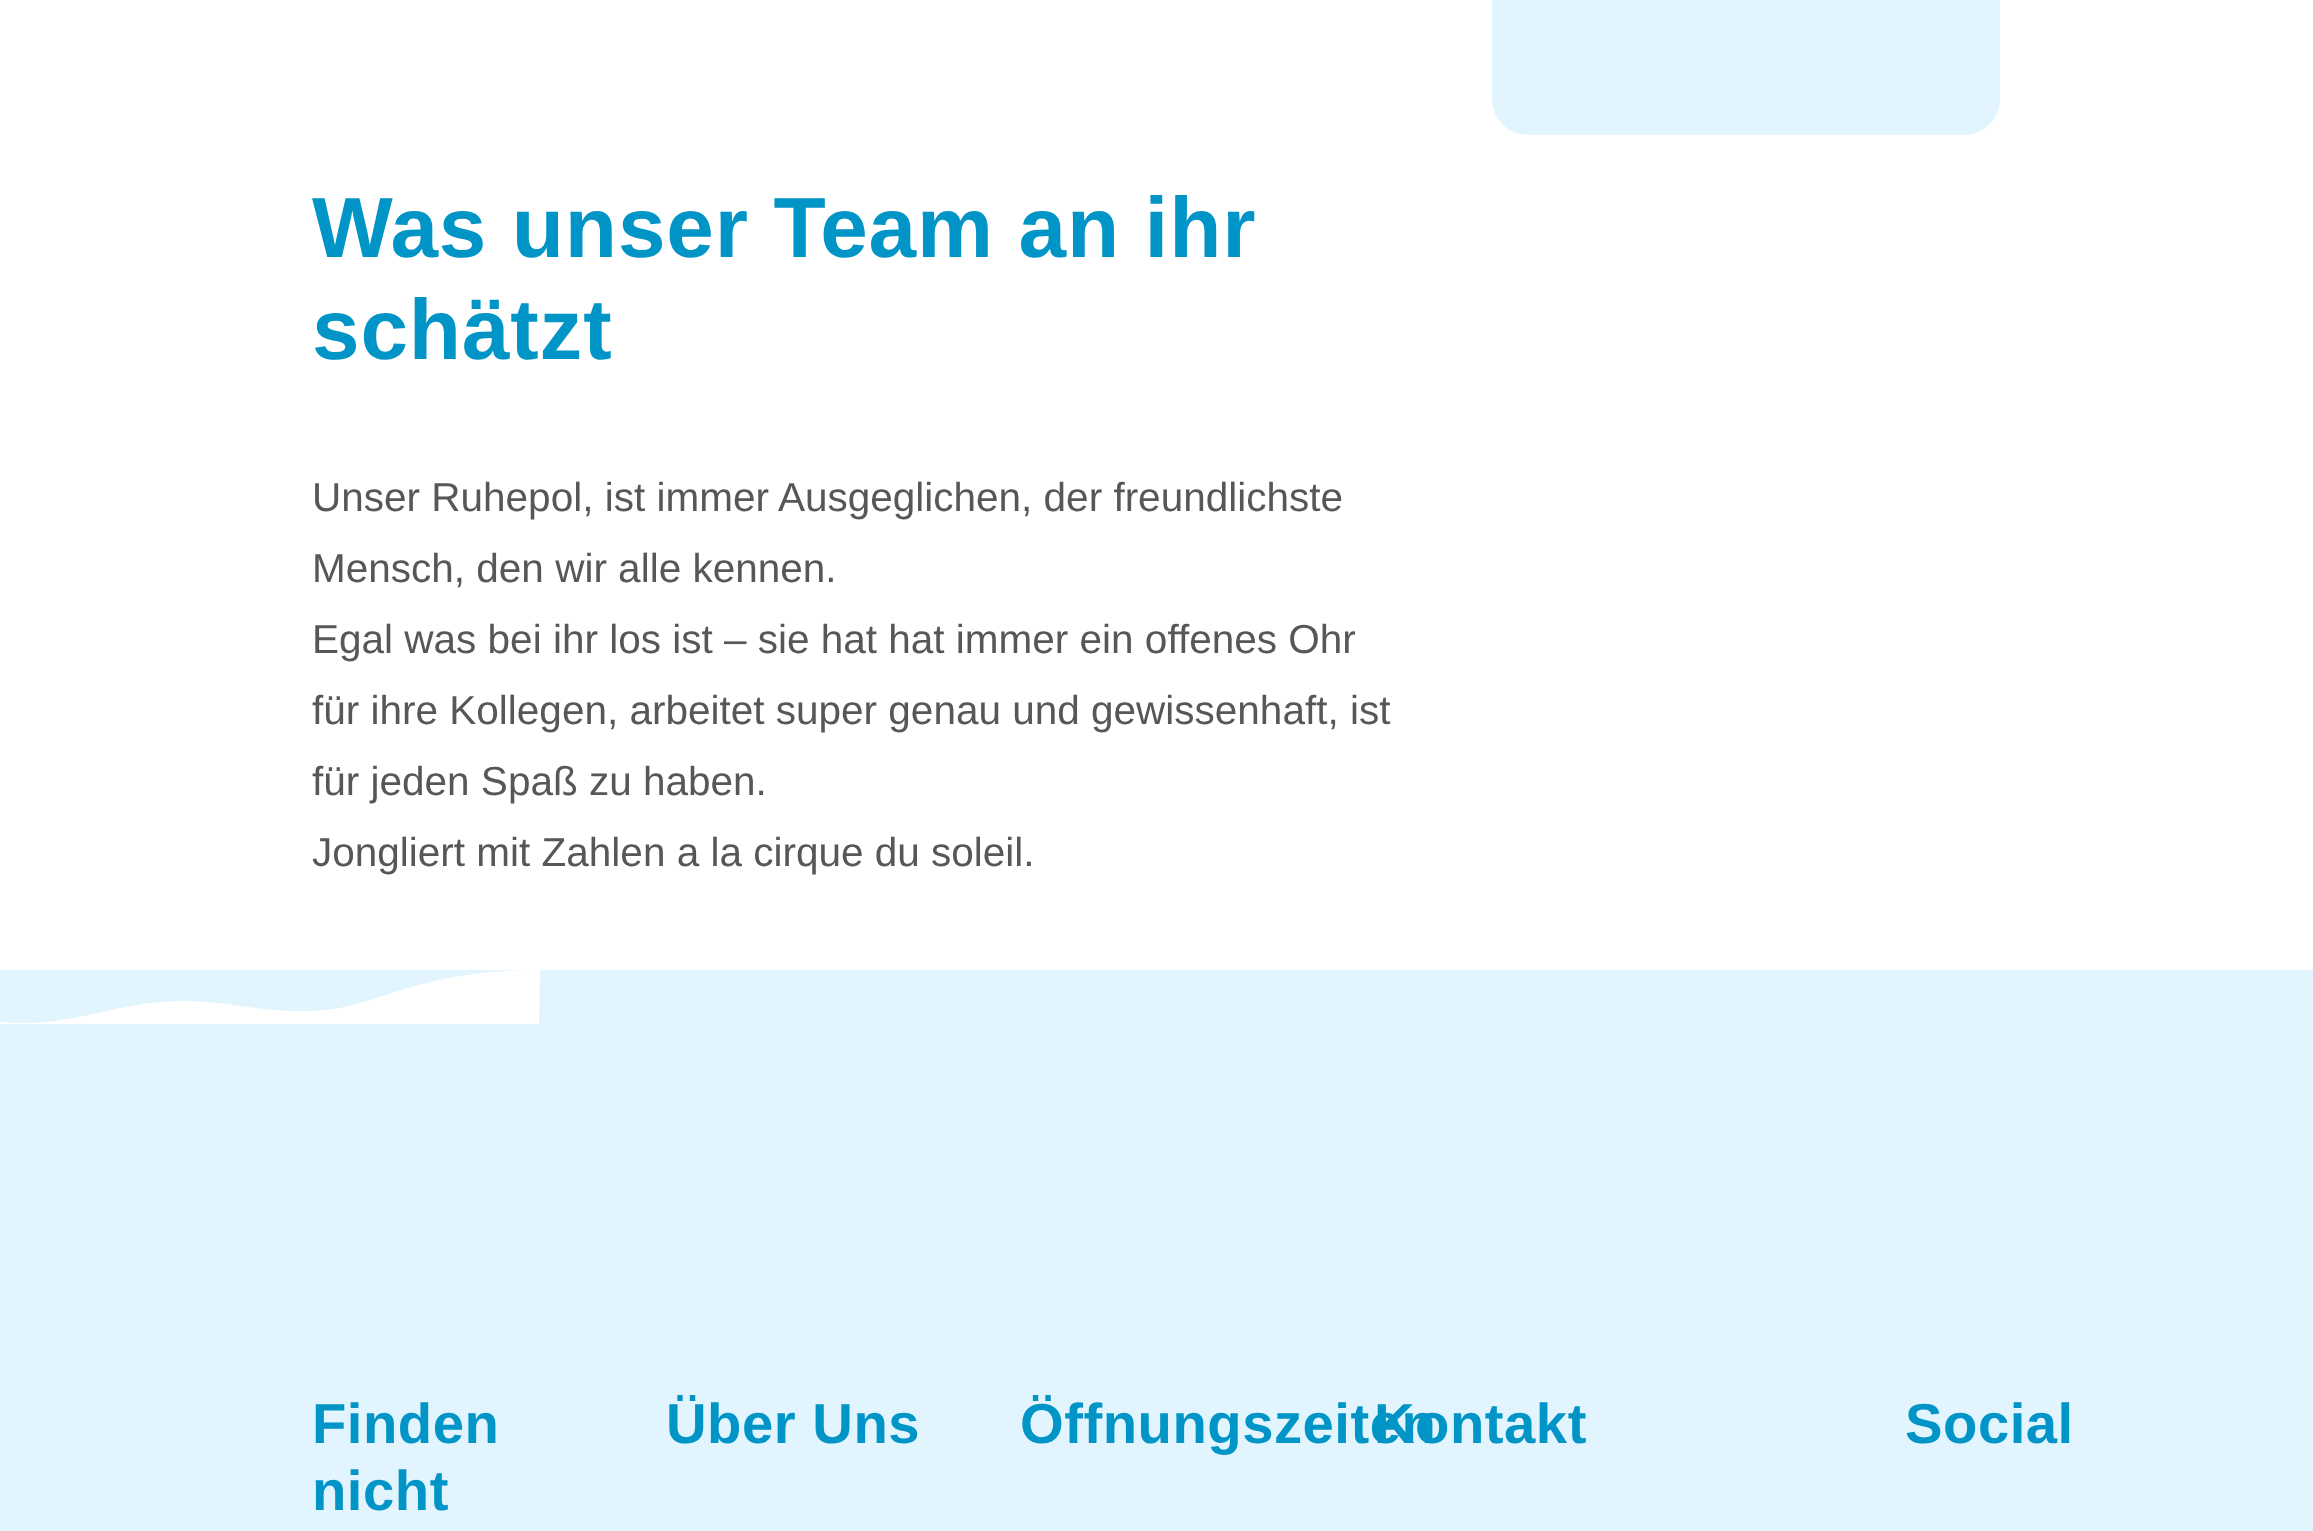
<!DOCTYPE html>
<meta charset="utf-8">
<style>body { margin: 0 } canvas { display: block }</style>
<canvas id="canvas" width="2313" height="1531"></canvas>
<script type="module">
  const canvas = document.getElementById("canvas");
  const g = canvas.getContext("2d");
  g.miterLimit = 4;
  g.fontKerning = "normal";
  function drawText(s, x, y, [font, color]) {
    g.font = font;
    g.fillStyle = color;
    g.fillText(s, x, y);
  }
  function fillBox(x, y, w, h, color) {
    g.fillStyle = color;
    g.fillRect(x, y, w, h);
  }
  function fillRounded(x, y, w, h, r, color) {
    g.fillStyle = color;
    g.beginPath();
    g.roundRect(x, y, w, h, r);
    g.fill();
  }

  const s1 = ["bold 85.5px Liberation Sans", "#0095C6"];
  const s2 = ["40.5px Liberation Sans", "#575756"];
  const s3 = ["bold 56.25px Liberation Sans", "#0095C6"];

  fillBox(0, 0, 2313, 1531, "#FFFFFF");
  fillRounded(1492, -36, 508, 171, 36, "#E2F5FF");
  g.letterSpacing = "0.85px";
  drawText("Was unser Team an ihr", 312, 257, s1);
  drawText("schätzt", 312, 359, s1);
  g.letterSpacing = "0px";
  drawText("Unser Ruhepol, ist immer Ausgeglichen, der freundlichste", 312, 511, s2);
  drawText("Mensch, den wir alle kennen.", 312, 582, s2);
  drawText("Egal was bei ihr los ist – sie hat hat immer ein offenes Ohr", 312, 653, s2);
  drawText("für ihre Kollegen, arbeitet super genau und gewissenhaft, ist", 312, 724, s2);
  drawText("für jeden Spaß zu haben.", 312, 795, s2);
  drawText("Jongliert mit Zahlen a la cirque du soleil.", 312, 866, s2);
  fillBox(0, 970, 2313, 561, "#E2F5FF");
  g.fillStyle = "#FFFFFF";
  g.beginPath();
  g.moveTo(539, 1024);
  g.lineTo(540, 970);
  g.bezierCurveTo(423, 970, 383, 1003, 327, 1010);
  g.bezierCurveTo(271, 1016, 228, 1000, 183, 1001);
  g.bezierCurveTo(140, 1001, 113, 1011, 68, 1019);
  g.bezierCurveTo(35, 1025, 10, 1023, 0, 1022);
  g.lineTo(0, 1024);
  g.closePath();
  g.fill();
  g.letterSpacing = "0.5px";
  drawText("Finden", 312, 1443, s3);
  drawText("nicht", 312, 1510, s3);
  drawText("Über Uns", 666, 1443, s3);
  drawText("Öffnungszeiten", 1020, 1443, s3);
  drawText("Kontakt", 1374, 1443, s3);
  drawText("Social", 1905, 1443, s3);
</script>
